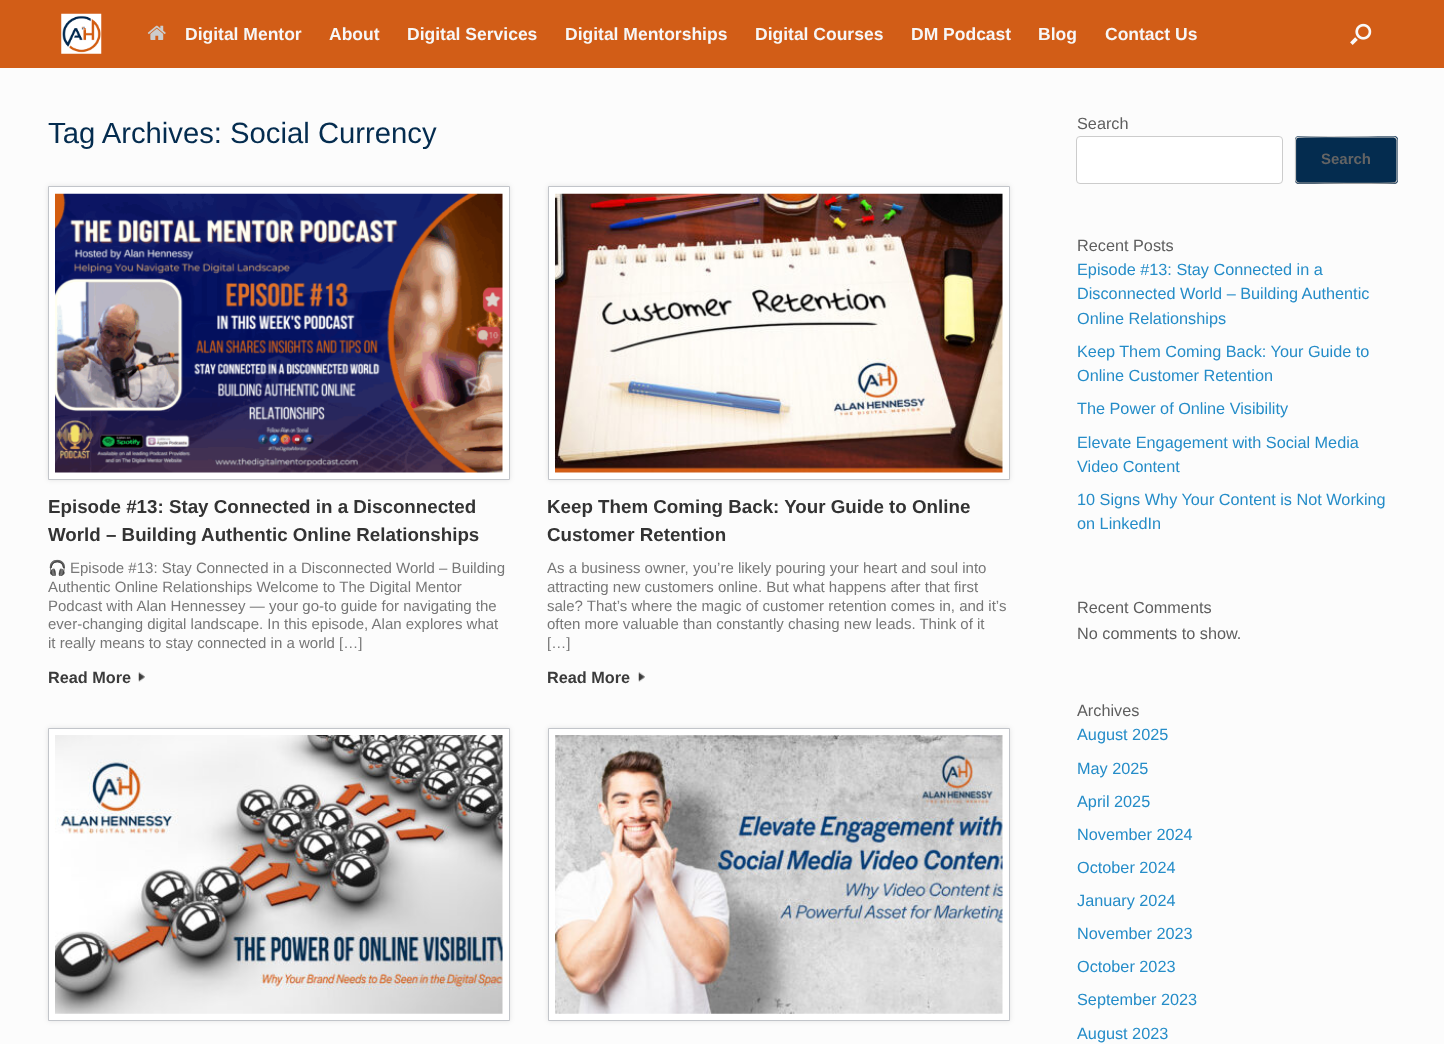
<!DOCTYPE html>
<meta charset="utf-8">
<style>body { margin: 0 } canvas { display: block }</style>
<canvas id="canvas" width="1444" height="1044"></canvas>
<script type="module">
  const canvas = document.getElementById("canvas");
  const g = canvas.getContext("2d");
  g.miterLimit = 4;
  g.fontKerning = "normal";
  function drawText(s, x, y, [font, color]) {
    g.font = font;
    g.fillStyle = color;
    g.fillText(s, x, y);
  }
  function fillBox(x, y, w, h, color) {
    g.fillStyle = color;
    g.fillRect(x, y, w, h);
  }
  function fillRounded(x, y, w, h, r, color) {
    g.fillStyle = color;
    g.beginPath();
    g.roundRect(x, y, w, h, r);
    g.fill();
  }
  async function drawPicture(src, x, y, w, h) {
    const img = new Image();
    img.src = src;
    await img.decode();
    g.drawImage(img, x, y, w, h);
  }

  const s1 = ["bold 17.5px Liberation Sans", "#F7F7F7"];
  const s2 = ["29.25px Liberation Sans", "#042C4F"];
  const s3 = ["bold 18.75px Liberation Sans", "#333333"];
  const s4 = ["15px Noto Color Emoji", "#777777"];
  const s5 = ["15px Liberation Sans", "#777777"];
  const s6 = ["bold 16.25px Liberation Sans", "#3B3B3B"];
  const s7 = ["16.25px Liberation Sans", "#5E5E5E"];
  const s8 = ["bold 15px Liberation Sans", "#646464"];
  const s9 = ["16.25px Liberation Sans", "#248CC8"];

  fillBox(0, 0, 1444, 1044, "#FCFCFC");
  fillBox(0, 0, 1444, 68, "#D25D17");
  await drawPicture("pic1.png", 61, 13, 41, 41);
  await drawPicture("pic2.png", 147, 25, 19, 15);
  drawText("Digital Mentor", 185, 40, s1);
  drawText("About", 329, 40, s1);
  drawText("Digital Services", 407, 40, s1);
  drawText("Digital Mentorships", 565, 40, s1);
  drawText("Digital Courses", 755, 40, s1);
  drawText("DM Podcast", 911, 40, s1);
  drawText("Blog", 1038, 40, s1);
  drawText("Contact Us", 1105, 40, s1);
  await drawPicture("pic3.png", 1350, 23, 22, 22);
  drawText("Tag Archives: Social Currency", 48, 143, s2);
  g.fillStyle = "rgba(0, 0, 0, 0.1)";
  g.filter = "blur(2.5px)";
  g.beginPath();
  g.rect(48, 186, 462, 294);
  g.fill();
  g.filter = "none";
  g.fillStyle = "#FFFFFF";
  g.beginPath();
  g.rect(48.5, 186.5, 461, 293);
  g.fill();
  g.strokeStyle = "#C2C5CA";
  g.stroke();
  await drawPicture("pic4.png", 55, 193, 448, 280);
  drawText("Episode #13: Stay Connected in a Disconnected", 48, 513, s3);
  drawText("World – Building Authentic Online Relationships", 48, 541, s3);
  drawText("🎧", 48, 573, s4);
  drawText("Episode #13: Stay Connected in a Disconnected World – Building", 70, 573, s5);
  drawText("Authentic Online Relationships Welcome to The Digital Mentor", 48, 592, s5);
  drawText("Podcast with Alan Hennessey — your go-to guide for navigating the", 48, 611, s5);
  drawText("ever-changing digital landscape. In this episode, Alan explores what", 48, 629, s5);
  drawText("it really means to stay connected in a world […]", 48, 648, s5);
  drawText("Read More", 48, 683, s6);
  await drawPicture("pic5.png", 138, 672, 7, 10);
  g.fillStyle = "rgba(0, 0, 0, 0.1)";
  g.filter = "blur(2.5px)";
  g.beginPath();
  g.rect(548, 186, 462, 294);
  g.fill();
  g.filter = "none";
  g.fillStyle = "#FFFFFF";
  g.beginPath();
  g.rect(548.5, 186.5, 461, 293);
  g.fill();
  g.stroke();
  await drawPicture("pic6.png", 555, 193, 448, 280);
  drawText("Keep Them Coming Back: Your Guide to Online", 547, 513, s3);
  drawText("Customer Retention", 547, 541, s3);
  drawText("As a business owner, you’re likely pouring your heart and soul into", 547, 573, s5);
  drawText("attracting new customers online. But what happens after that first", 547, 592, s5);
  drawText("sale? That’s where the magic of customer retention comes in, and it’s", 547, 611, s5);
  drawText("often more valuable than constantly chasing new leads. Think of it", 547, 629, s5);
  drawText("[…]", 547, 648, s5);
  drawText("Read More", 547, 683, s6);
  await drawPicture("pic7.png", 638, 672, 7, 10);
  g.fillStyle = "rgba(0, 0, 0, 0.1)";
  g.filter = "blur(2.5px)";
  g.beginPath();
  g.rect(48, 728, 462, 293);
  g.fill();
  g.filter = "none";
  g.fillStyle = "#FFFFFF";
  g.beginPath();
  g.rect(48.5, 728.5, 461, 292);
  g.fill();
  g.stroke();
  await drawPicture("pic8.png", 55, 735, 448, 279);
  g.fillStyle = "rgba(0, 0, 0, 0.1)";
  g.filter = "blur(2.5px)";
  g.beginPath();
  g.rect(548, 728, 462, 293);
  g.fill();
  g.filter = "none";
  g.fillStyle = "#FFFFFF";
  g.beginPath();
  g.rect(548.5, 728.5, 461, 292);
  g.fill();
  g.stroke();
  await drawPicture("pic9.png", 555, 735, 448, 279);
  drawText("Search", 1077, 129, s7);
  g.fillStyle = "#FFFFFF";
  g.beginPath();
  g.roundRect(1076.5, 136.5, 206, 47, 3.5);
  g.fill();
  g.strokeStyle = "#CCCCCC";
  g.stroke();
  fillRounded(1295, 136, 103, 48, 4, "#042C4F");
  g.beginPath();
  g.moveTo(1296.5, 138);
  g.lineTo(1297, 137.5);
  g.bezierCurveTo(1299, 136, 1369.5, 137, 1378, 137);
  g.lineTo(1394, 137);
  g.lineTo(1396, 138);
  g.strokeStyle = "#D2D2D2";
  g.lineWidth = 1.2;
  g.stroke();
  g.beginPath();
  g.moveTo(1396, 138);
  g.lineTo(1397, 140);
  g.lineTo(1397, 180);
  g.lineTo(1396, 182);
  g.strokeStyle = "#C3C3C3";
  g.stroke();
  g.beginPath();
  g.moveTo(1396, 182);
  g.lineTo(1395.5, 182.5);
  g.bezierCurveTo(1393.5, 184, 1323, 183, 1314.5, 183);
  g.lineTo(1299, 183);
  g.lineTo(1296.5, 182);
  g.strokeStyle = "#9F9F9F";
  g.stroke();
  g.beginPath();
  g.moveTo(1296.5, 182);
  g.lineTo(1295.5, 180);
  g.lineTo(1295.5, 140);
  g.lineTo(1296.5, 138);
  g.strokeStyle = "#C3C3C3";
  g.stroke();
  drawText("Search", 1321, 164, s8);
  drawText("Recent Posts", 1077, 251, s7);
  drawText("Episode #13: Stay Connected in a", 1077, 275, s9);
  drawText("Disconnected World – Building Authentic", 1077, 299, s9);
  drawText("Online Relationships", 1077, 324, s9);
  drawText("Keep Them Coming Back: Your Guide to", 1077, 357, s9);
  drawText("Online Customer Retention", 1077, 381, s9);
  drawText("The Power of Online Visibility", 1077, 414, s9);
  drawText("Elevate Engagement with Social Media", 1077, 448, s9);
  drawText("Video Content", 1077, 472, s9);
  drawText("10 Signs Why Your Content is Not Working", 1077, 505, s9);
  drawText("on LinkedIn", 1077, 529, s9);
  drawText("Recent Comments", 1077, 613, s7);
  drawText("No comments to show.", 1077, 639, s7);
  drawText("Archives", 1077, 716, s7);
  drawText("August 2025", 1077, 740, s9);
  drawText("May 2025", 1077, 774, s9);
  drawText("April 2025", 1077, 807, s9);
  drawText("November 2024", 1077, 840, s9);
  drawText("October 2024", 1077, 873, s9);
  drawText("January 2024", 1077, 906, s9);
  drawText("November 2023", 1077, 939, s9);
  drawText("October 2023", 1077, 972, s9);
  drawText("September 2023", 1077, 1005, s9);
  drawText("August 2023", 1077, 1039, s9);
</script>
